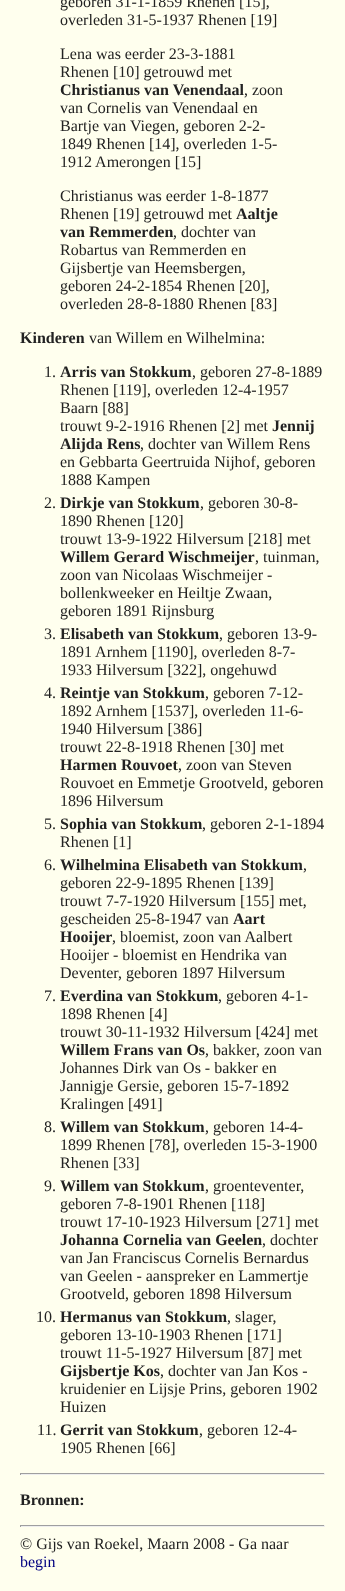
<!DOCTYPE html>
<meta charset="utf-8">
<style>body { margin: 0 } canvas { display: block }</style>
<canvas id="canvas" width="345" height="1591"></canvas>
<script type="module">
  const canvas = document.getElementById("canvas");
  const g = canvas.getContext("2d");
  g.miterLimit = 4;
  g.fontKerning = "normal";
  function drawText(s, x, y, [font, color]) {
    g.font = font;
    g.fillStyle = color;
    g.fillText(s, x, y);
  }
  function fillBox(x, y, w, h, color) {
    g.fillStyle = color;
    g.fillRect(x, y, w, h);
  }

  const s1 = ["16px Liberation Serif", "#222222"];
  const s2 = ["bold 16px Liberation Serif", "#222222"];
  const s3 = ["16px Liberation Serif", "#000080"];

  fillBox(0, 0, 345, 1591, "#FFFFEE");
  drawText("geboren 31-1-1859 Rhenen [15],", 60, 7, s1);
  drawText("overleden 31-5-1937 Rhenen [19]", 60, 25, s1);
  drawText("Lena was eerder 23-3-1881", 60, 59, s1);
  drawText("Rhenen [10] getrouwd met", 60, 77, s1);
  drawText("Christianus van Venendaal", 60, 95, s2);
  drawText(", zoon", 244, 95, s1);
  drawText("van Cornelis van Venendaal en", 60, 113, s1);
  drawText("Bartje van Viegen, geboren 2-2-", 60, 131, s1);
  drawText("1849 Rhenen [14], overleden 1-5-", 60, 149, s1);
  drawText("1912 Amerongen [15]", 60, 167, s1);
  drawText("Christianus was eerder 1-8-1877", 60, 201, s1);
  drawText("Rhenen [19] getrouwd met", 60, 219, s1);
  drawText("Aaltje", 236, 219, s2);
  drawText("van Remmerden", 60, 237, s2);
  drawText(", dochter van", 173, 237, s1);
  drawText("Robartus van Remmerden en", 60, 255, s1);
  drawText("Gijsbertje van Heemsbergen,", 60, 273, s1);
  drawText("geboren 24-2-1854 Rhenen [20],", 60, 291, s1);
  drawText("overleden 28-8-1880 Rhenen [83]", 60, 309, s1);
  drawText("Kinderen", 20, 343, s2);
  drawText("van Willem en Wilhelmina:", 89, 343, s1);
  drawText("1.", 44, 377, s1);
  drawText("Arris van Stokkum", 60, 377, s2);
  drawText(", geboren 27-8-1889", 192, 377, s1);
  drawText("Rhenen [119], overleden 12-4-1957", 60, 395, s1);
  drawText("Baarn [88]", 60, 413, s1);
  drawText("trouwt 9-2-1916 Rhenen [2] met", 60, 431, s1);
  drawText("Jennij", 272, 431, s2);
  drawText("Alijda Rens", 60, 449, s2);
  drawText(", dochter van Willem Rens", 140, 449, s1);
  drawText("en Gebbarta Geertruida Nijhof, geboren", 60, 467, s1);
  drawText("1888 Kampen", 60, 485, s1);
  drawText("2.", 44, 508, s1);
  drawText("Dirkje van Stokkum", 60, 508, s2);
  drawText(", geboren 30-8-", 200, 508, s1);
  drawText("1890 Rhenen [120]", 60, 526, s1);
  drawText("trouwt 13-9-1922 Hilversum [218] met", 60, 544, s1);
  drawText("Willem Gerard Wischmeijer", 60, 562, s2);
  drawText(", tuinman,", 255, 562, s1);
  drawText("zoon van Nicolaas Wischmeijer -", 60, 580, s1);
  drawText("bollenkweeker en Heiltje Zwaan,", 60, 598, s1);
  drawText("geboren 1891 Rijnsburg", 60, 616, s1);
  drawText("3.", 44, 639, s1);
  drawText("Elisabeth van Stokkum", 60, 639, s2);
  drawText(", geboren 13-9-", 219, 639, s1);
  drawText("1891 Arnhem [1190], overleden 8-7-", 60, 657, s1);
  drawText("1933 Hilversum [322], ongehuwd", 60, 675, s1);
  drawText("4.", 44, 698, s1);
  drawText("Reintje van Stokkum", 60, 698, s2);
  drawText(", geboren 7-12-", 205, 698, s1);
  drawText("1892 Arnhem [1537], overleden 11-6-", 60, 716, s1);
  drawText("1940 Hilversum [386]", 60, 734, s1);
  drawText("trouwt 22-8-1918 Rhenen [30] met", 60, 752, s1);
  drawText("Harmen Rouvoet", 60, 770, s2);
  drawText(", zoon van Steven", 178, 770, s1);
  drawText("Rouvoet en Emmetje Grootveld, geboren", 60, 788, s1);
  drawText("1896 Hilversum", 60, 806, s1);
  drawText("5.", 44, 829, s1);
  drawText("Sophia van Stokkum", 60, 829, s2);
  drawText(", geboren 2-1-1894", 202, 829, s1);
  drawText("Rhenen [1]", 60, 847, s1);
  drawText("6.", 44, 870, s1);
  drawText("Wilhelmina Elisabeth van Stokkum", 60, 870, s2);
  drawText(",", 303, 870, s1);
  drawText("geboren 22-9-1895 Rhenen [139]", 60, 888, s1);
  drawText("trouwt 7-7-1920 Hilversum [155] met,", 60, 906, s1);
  drawText("gescheiden 25-8-1947 van", 60, 924, s1);
  drawText("Aart", 233, 924, s2);
  drawText("Hooijer", 60, 942, s2);
  drawText(", bloemist, zoon van Aalbert", 112, 942, s1);
  drawText("Hooijer - bloemist en Hendrika van", 60, 960, s1);
  drawText("Deventer, geboren 1897 Hilversum", 60, 978, s1);
  drawText("7.", 44, 1001, s1);
  drawText("Everdina van Stokkum", 60, 1001, s2);
  drawText(", geboren 4-1-", 218, 1001, s1);
  drawText("1898 Rhenen [4]", 60, 1019, s1);
  drawText("trouwt 30-11-1932 Hilversum [424] met", 60, 1037, s1);
  drawText("Willem Frans van Os", 60, 1055, s2);
  drawText(", bakker, zoon van", 205, 1055, s1);
  drawText("Johannes Dirk van Os - bakker en", 60, 1073, s1);
  drawText("Jannigje Gersie, geboren 15-7-1892", 60, 1091, s1);
  drawText("Kralingen [491]", 60, 1109, s1);
  drawText("8.", 44, 1132, s1);
  drawText("Willem van Stokkum", 60, 1132, s2);
  drawText(", geboren 14-4-", 205, 1132, s1);
  drawText("1899 Rhenen [78], overleden 15-3-1900", 60, 1150, s1);
  drawText("Rhenen [33]", 60, 1168, s1);
  drawText("9.", 44, 1191, s1);
  drawText("Willem van Stokkum", 60, 1191, s2);
  drawText(", groenteventer,", 205, 1191, s1);
  drawText("geboren 7-8-1901 Rhenen [118]", 60, 1209, s1);
  drawText("trouwt 17-10-1923 Hilversum [271] met", 60, 1227, s1);
  drawText("Johanna Cornelia van Geelen", 60, 1245, s2);
  drawText(", dochter", 262, 1245, s1);
  drawText("van Jan Franciscus Cornelis Bernardus", 60, 1263, s1);
  drawText("van Geelen - aanspreker en Lammertje", 60, 1281, s1);
  drawText("Grootveld, geboren 1898 Hilversum", 60, 1299, s1);
  drawText("10.", 36, 1322, s1);
  drawText("Hermanus van Stokkum", 60, 1322, s2);
  drawText(", slager,", 227, 1322, s1);
  drawText("geboren 13-10-1903 Rhenen [171]", 60, 1340, s1);
  drawText("trouwt 11-5-1927 Hilversum [87] met", 60, 1358, s1);
  drawText("Gijsbertje Kos", 60, 1376, s2);
  drawText(", dochter van Jan Kos -", 160, 1376, s1);
  drawText("kruidenier en Lijsje Prins, geboren 1902", 60, 1394, s1);
  drawText("Huizen", 60, 1412, s1);
  drawText("11.", 37, 1435, s1);
  drawText("Gerrit van Stokkum", 60, 1435, s2);
  drawText(", geboren 12-4-", 199, 1435, s1);
  drawText("1905 Rhenen [66]", 60, 1453, s1);
  fillBox(20, 1473, 305, 1, "#9F9F9F");
  fillBox(324, 1473, 1, 2, "#EEEEEE");
  fillBox(20, 1474, 305, 1, "#EEEEEE");
  fillBox(20, 1473, 1, 2, "#9F9F9F");
  drawText("Bronnen:", 20, 1505, s2);
  fillBox(20, 1525, 305, 1, "#9F9F9F");
  fillBox(324, 1525, 1, 2, "#EEEEEE");
  fillBox(20, 1526, 305, 1, "#EEEEEE");
  fillBox(20, 1525, 1, 2, "#9F9F9F");
  drawText("© Gijs van Roekel, Maarn 2008 - Ga naar", 20, 1549, s1);
  drawText("begin", 20, 1567, s3);
</script>
